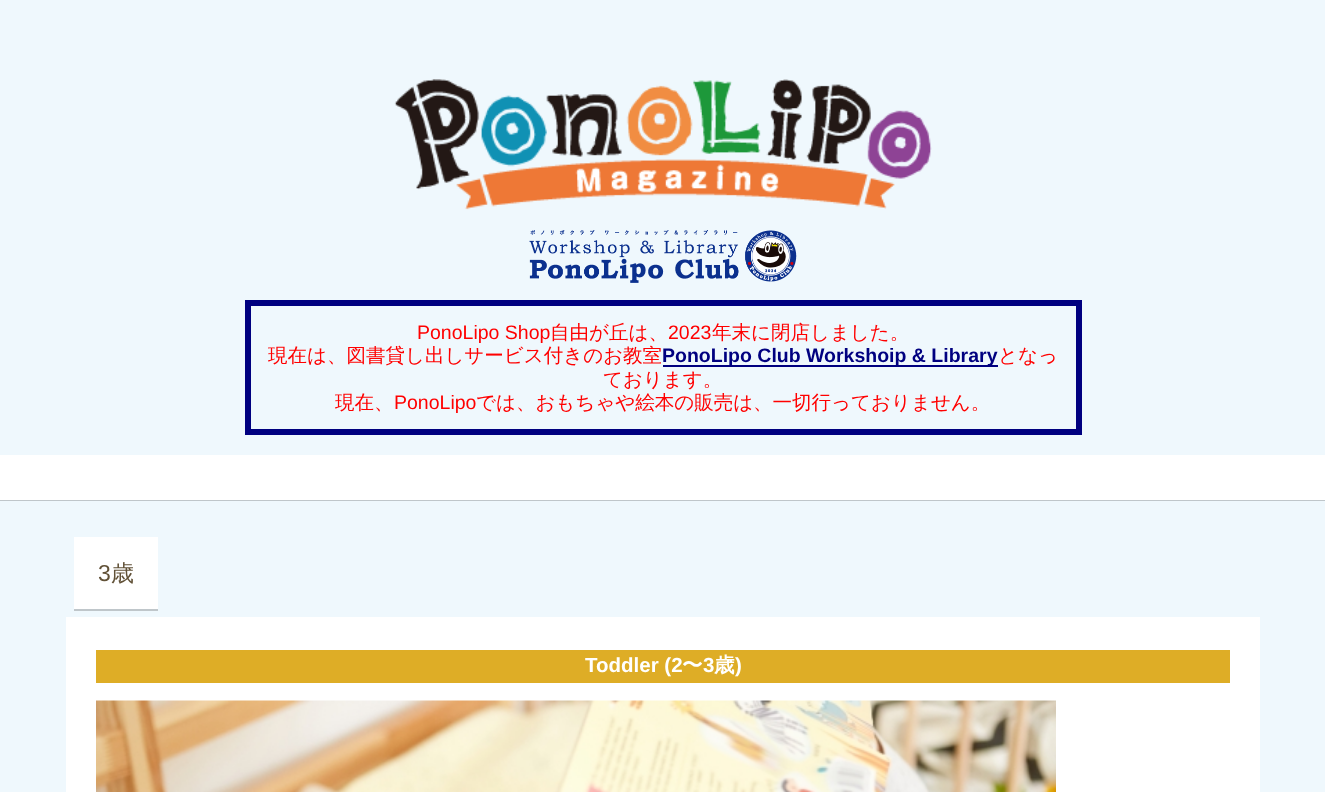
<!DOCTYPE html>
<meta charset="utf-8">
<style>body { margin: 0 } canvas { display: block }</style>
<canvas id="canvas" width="1325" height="792"></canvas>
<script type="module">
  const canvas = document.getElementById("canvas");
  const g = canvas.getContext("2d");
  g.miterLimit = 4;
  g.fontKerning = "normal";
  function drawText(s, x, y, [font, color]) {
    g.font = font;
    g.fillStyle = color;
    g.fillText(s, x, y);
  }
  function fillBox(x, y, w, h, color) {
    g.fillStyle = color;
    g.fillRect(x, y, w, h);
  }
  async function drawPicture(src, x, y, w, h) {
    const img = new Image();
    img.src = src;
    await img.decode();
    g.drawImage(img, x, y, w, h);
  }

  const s1 = ["19.5px Liberation Sans", "#FF0000"];
  const s2 = ["500 19.5px WenQuanYi Zen Hei", "#FF0000"];
  const s3 = ["bold 19.5px Liberation Sans", "#000080"];
  const s4 = ["23px Liberation Sans", "#615137"];
  const s5 = ["500 23px WenQuanYi Zen Hei", "#615137"];
  const s6 = ["bold 20.5px Liberation Sans", "#FFFFFF"];
  const s7 = ["bold 20.5px WenQuanYi Zen Hei", "#FFFFFF"];

  fillBox(0, 0, 1325, 792, "#EFF8FD");
  await drawPicture("pic1.png", 394, 79, 538, 131);
  await drawPicture("pic2.png", 529, 230, 268, 53);
  g.strokeStyle = "#000080";
  g.lineWidth = 6;
  g.strokeRect(248, 303, 831, 129);
  drawText("PonoLipo Shop", 417, 339, s1);
  drawText("自由が丘は、", 550, 339, s2);
  drawText("2023", 668, 339, s1);
  drawText("年末に閉店しました。", 712, 339, s2);
  drawText("現在は、図書貸し出しサービス付きのお教室", 268, 362, s2);
  fillBox(663, 365, 335, 2, "#000080");
  drawText("PonoLipo Club Workshoip & Library", 662, 362, s3);
  drawText("となっ", 998, 362, s2);
  drawText("ております。", 603, 386, s2);
  drawText("現在、", 335, 409, s2);
  drawText("PonoLipo", 394, 409, s1);
  drawText("では、おもちゃや絵本の販売は、一切行っておりません。", 476, 409, s2);
  fillBox(0, 500, 1325, 1, "#BFC6CA");
  fillBox(0, 455, 1325, 45, "#FFFFFF");
  g.fillStyle = "#BFC6CA";
  g.beginPath();
  g.moveTo(74, 609);
  g.lineTo(74, 611);
  g.lineTo(158, 611);
  g.lineTo(158, 539);
  g.lineTo(158, 609);
  g.closePath();
  g.fill();
  fillBox(74, 537, 84, 72, "#FFFFFF");
  drawText("3", 98, 581, s4);
  drawText("歳", 111, 581, s5);
  fillBox(66, 617, 1194, 175, "#FFFFFF");
  fillBox(96, 650, 1134, 33, "#DEAD26");
  drawText("Toddler (2", 585, 672, s6);
  drawText("〜", 682, 672, s7);
  drawText("3", 703, 672, s6);
  drawText("歳", 714, 672, s7);
  drawText(")", 735, 672, s6);
  await drawPicture("pic3.png", 96, 700, 960, 92);
</script>
